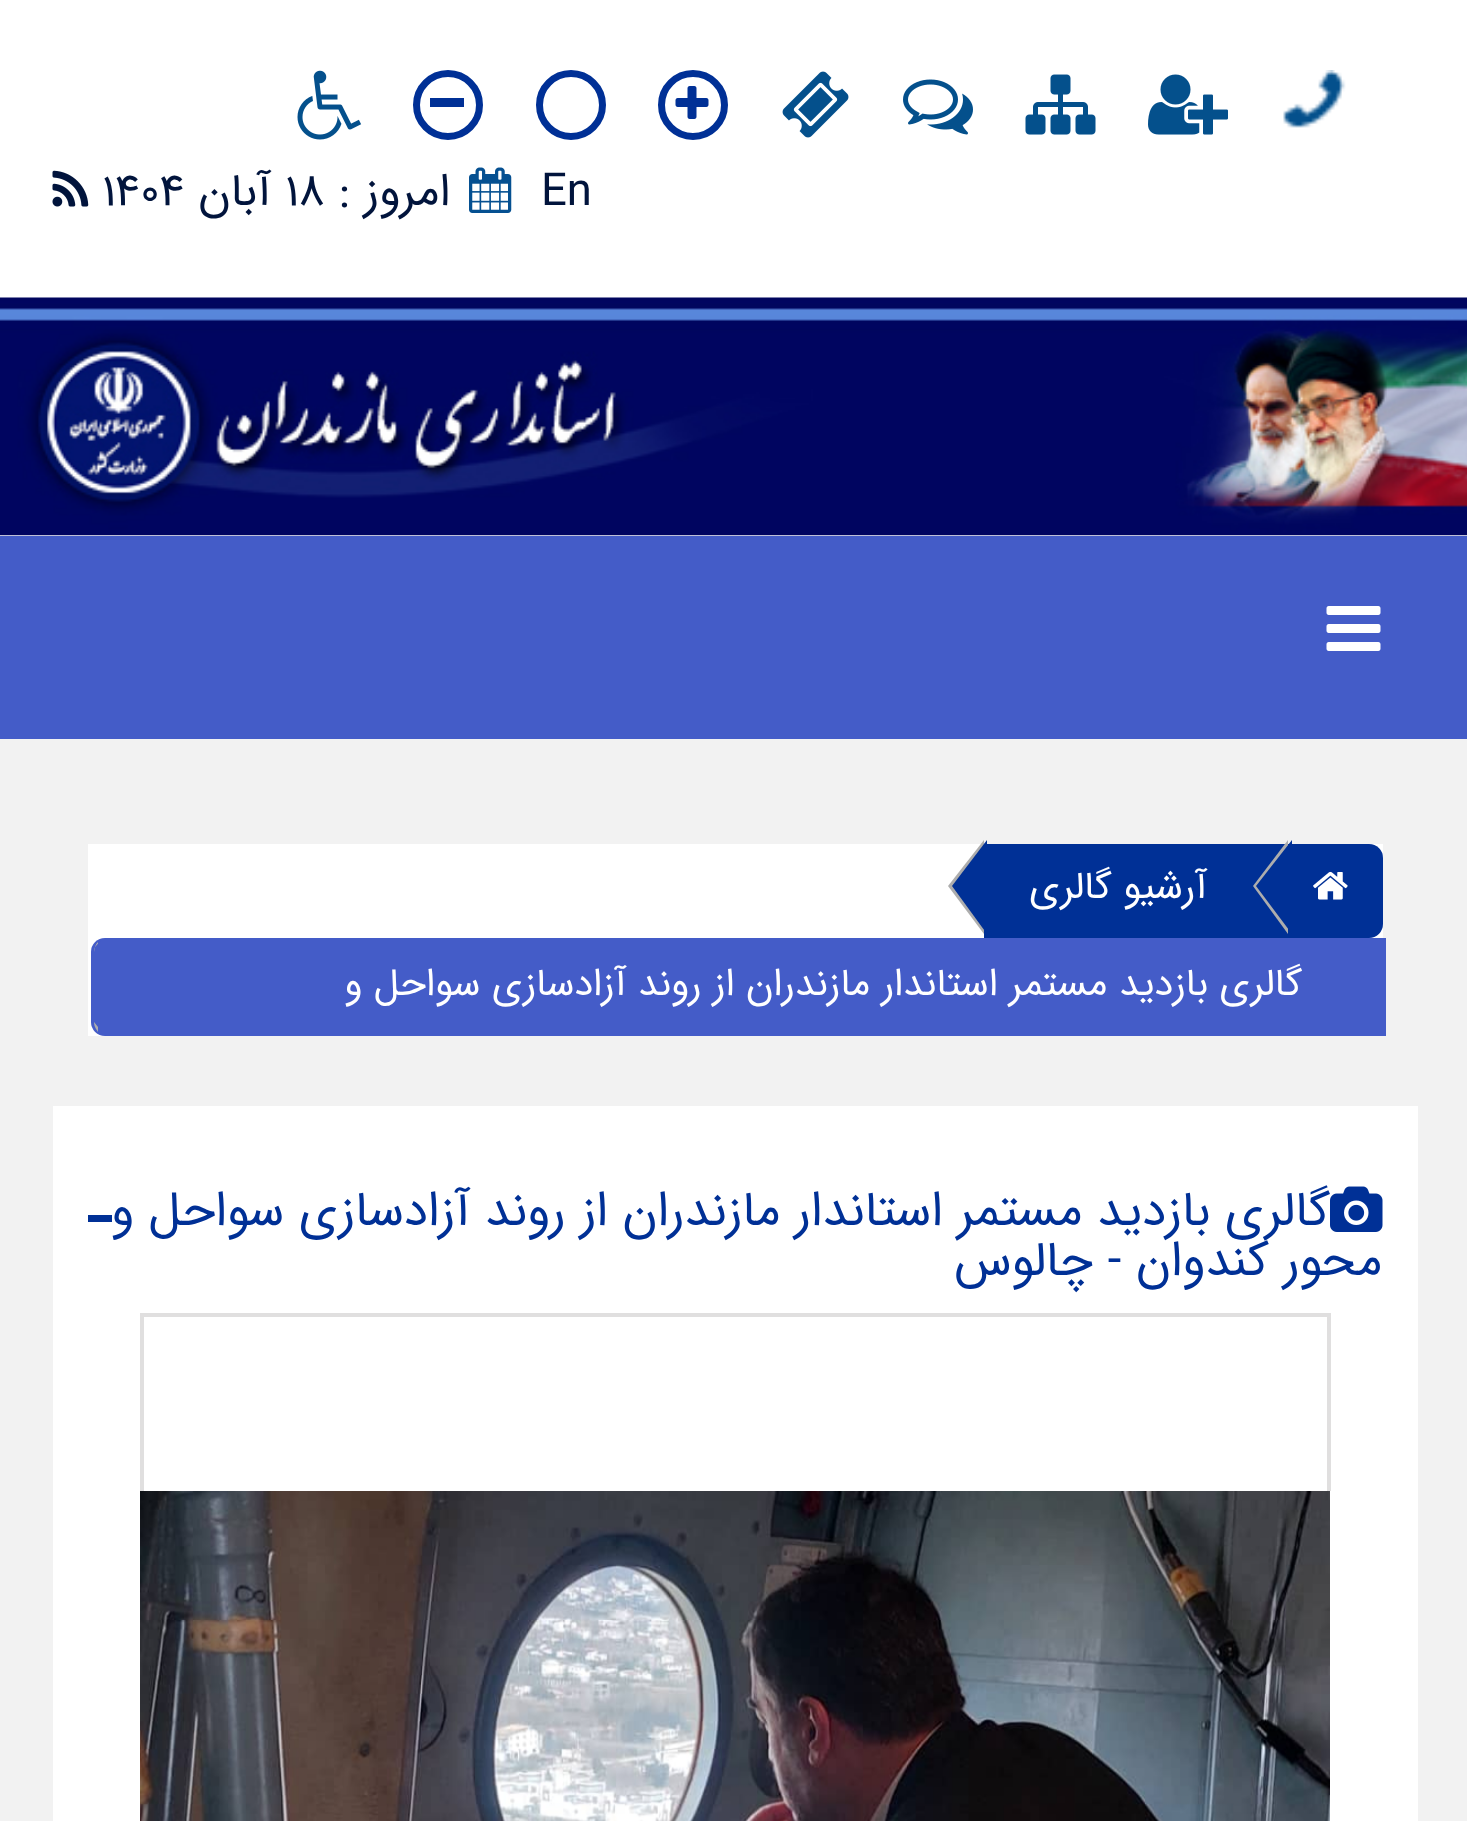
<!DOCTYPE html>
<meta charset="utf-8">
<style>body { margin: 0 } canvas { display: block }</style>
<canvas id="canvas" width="1467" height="1821"></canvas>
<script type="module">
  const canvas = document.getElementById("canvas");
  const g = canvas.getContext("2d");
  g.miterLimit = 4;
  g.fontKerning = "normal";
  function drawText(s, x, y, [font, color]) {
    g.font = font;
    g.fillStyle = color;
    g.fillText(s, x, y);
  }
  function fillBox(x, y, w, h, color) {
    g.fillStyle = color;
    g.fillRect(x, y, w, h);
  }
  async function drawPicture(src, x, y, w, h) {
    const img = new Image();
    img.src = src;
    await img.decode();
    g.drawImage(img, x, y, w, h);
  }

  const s1 = ["45.5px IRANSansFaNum", "#01143C"];
  const s2 = ["38.5px IRANSansFaNum", "#FFFFFF"];
  const s3 = ["49px IRANSansFaNum", "#003096"];

  fillBox(0, 0, 1467, 1821, "#FFFFFF");
  await drawPicture("pic1.png", 1283, 70, 63, 58);
  await drawPicture("pic2.png", 1148, 74, 80, 61);
  await drawPicture("pic3.png", 1025, 74, 71, 61);
  await drawPicture("pic4.png", 903, 79, 70, 56);
  await drawPicture("pic5.png", 782, 71, 67, 67);
  g.beginPath();
  g.arc(693, 105, 31.5, 0, Math.PI * 2);
  g.strokeStyle = "#003096";
  g.lineWidth = 7;
  g.stroke();
  await drawPicture("pic6.png", 675, 86, 34, 33);
  g.beginPath();
  g.arc(571, 105, 31.5, 0, Math.PI * 2);
  g.stroke();
  g.beginPath();
  g.arc(448, 105, 31.5, 0, Math.PI * 2);
  g.stroke();
  fillBox(430, 98, 34, 9, "#003096");
  await drawPicture("pic7.png", 297, 70, 65, 70);
  drawText("En", 541, 205, s1);
  await drawPicture("pic8.png", 469, 167, 43, 46);
  g.direction = "rtl";
  drawText("امروز :", 450, 205, s1);
  g.direction = "ltr";
  drawText("18", 285, 205, s1);
  g.direction = "rtl";
  drawText("آبان", 271, 205, s1);
  g.direction = "ltr";
  drawText("1404", 102, 205, s1);
  await drawPicture("pic9.png", 52, 170, 37, 37);
  await drawPicture("pic10.png", 0, 297, 1467, 239);
  fillBox(0, 536, 1467, 203, "#445CC8");
  await drawPicture("pic11.png", 1326, 606, 55, 45);
  fillBox(0, 739, 1467, 1082, "#F2F2F2");
  fillBox(88, 844, 1295, 192, "#FFFFFF");
  g.fillStyle = "#003096";
  g.beginPath();
  g.roundRect(1288, 844, 95, 94, [0, 14, 14, 0]);
  g.fill();
  fillBox(984, 844, 304, 94, "#003096");
  g.fillStyle = "#ADADAD";
  g.beginPath();
  g.moveTo(1288, 840);
  g.lineTo(1288, 934);
  g.lineTo(1253, 886);
  g.closePath();
  g.fill();
  await drawPicture("pic12.png", 1313, 871, 35, 29);
  g.fillStyle = "#003096";
  g.beginPath();
  g.moveTo(1292, 840);
  g.lineTo(1292, 934);
  g.lineTo(1256, 886);
  g.closePath();
  g.fill();
  g.fillStyle = "#ADADAD";
  g.beginPath();
  g.moveTo(984, 840);
  g.lineTo(984, 934);
  g.lineTo(948, 886);
  g.closePath();
  g.fill();
  g.direction = "rtl";
  drawText("آرشیو گالری", 1207, 898, s2);
  g.fillStyle = "#003096";
  g.beginPath();
  g.moveTo(987, 840);
  g.lineTo(987, 934);
  g.lineTo(952, 886);
  g.closePath();
  g.fill();
  g.fillStyle = "#445CC8";
  g.beginPath();
  g.roundRect(91, 938, 1295, 98, [14, 0, 0, 14]);
  g.fill();
  g.fillStyle = "#ADADAD";
  g.beginPath();
  g.moveTo(98, 942);
  g.lineTo(98, 1032);
  g.lineTo(96, 1029);
  g.bezierCurveTo(95, 1027, 94, 1025, 94, 1022);
  g.lineTo(94, 952);
  g.bezierCurveTo(94, 948, 96, 944, 98, 942);
  g.closePath();
  g.fill();
  g.fillStyle = "#445CC8";
  g.beginPath();
  g.moveTo(95, 947);
  g.lineTo(102, 939);
  g.lineTo(102, 1032);
  g.lineTo(94, 1022);
  g.lineTo(94, 952);
  g.closePath();
  g.fill();
  drawText("گالری بازدید مستمر استاندار مازندران از روند آزادسازی سواحل و", 1302, 995, s2);
  fillBox(53, 1106, 1365, 715, "#FFFFFF");
  fillBox(88, 1215, 24, 7, "#003096");
  await drawPicture("pic13.png", 1330, 1186, 53, 46);
  drawText("گالری بازدید مستمر استاندار مازندران از روند آزادسازی سواحل و", 1330, 1225, s3);
  drawText("محور کندوان - چالوس", 1382, 1275, s3);
  fillBox(140, 1313, 1190, 4, "#E0DFDF");
  fillBox(1327, 1313, 4, 178, "#E0DFDF");
  fillBox(140, 1313, 4, 178, "#E0DFDF");
  await drawPicture("pic14.png", 140, 1491, 1190, 330);
</script>
